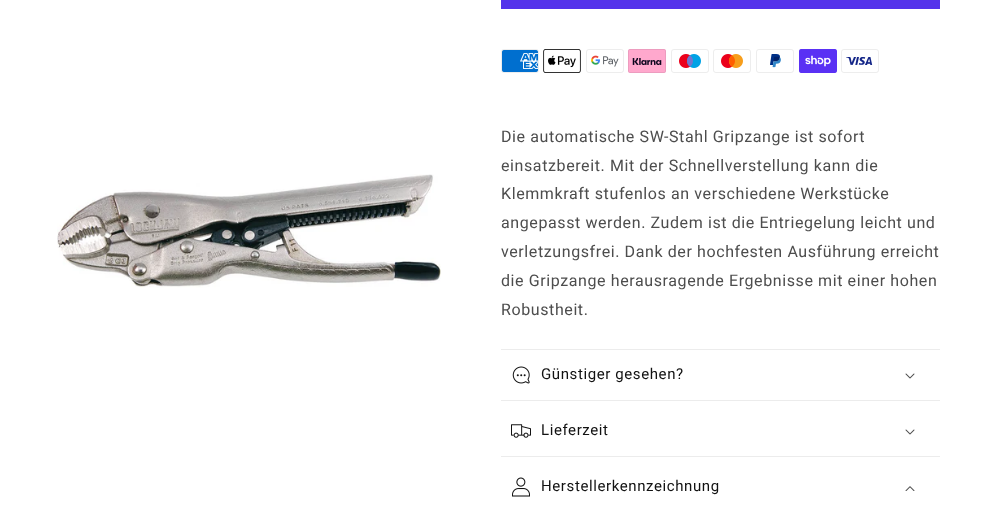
<!DOCTYPE html>
<meta charset="utf-8">
<style>body { margin: 0 } canvas { display: block }</style>
<canvas id="canvas" width="990" height="514"></canvas>
<script type="module">
  const canvas = document.getElementById("canvas");
  const g = canvas.getContext("2d");
  g.miterLimit = 4;
  g.fontKerning = "normal";
  function drawText(s, x, y, [font, color]) {
    g.font = font;
    g.fillStyle = color;
    g.fillText(s, x, y);
  }
  function fillBox(x, y, w, h, color) {
    g.fillStyle = color;
    g.fillRect(x, y, w, h);
  }
  async function drawPicture(src, x, y, w, h) {
    const img = new Image();
    img.src = src;
    await img.decode();
    g.drawImage(img, x, y, w, h);
  }

  const s1 = ["16px Roboto", "#4D4D4D"];
  const s2 = ["15px Roboto", "#121212"];

  fillBox(0, 0, 990, 514, "#FFFFFF");
  await drawPicture("pic1.png", 57, 174, 384, 114);
  fillBox(501, 0, 439, 9, "#5433EB");
  await drawPicture("pic2.png", 501, 49, 38, 24);
  await drawPicture("pic3.png", 543, 49, 38, 24);
  await drawPicture("pic4.png", 586, 49, 38, 24);
  await drawPicture("pic5.png", 628, 49, 38, 24);
  await drawPicture("pic6.png", 671, 49, 38, 24);
  await drawPicture("pic7.png", 713, 49, 38, 24);
  await drawPicture("pic8.png", 756, 49, 38, 24);
  await drawPicture("pic9.png", 799, 49, 38, 24);
  await drawPicture("pic10.png", 841, 49, 38, 24);
  g.letterSpacing = "0.6px";
  drawText("Die automatische SW-Stahl Gripzange ist sofort", 501, 142, s1);
  drawText("einsatzbereit. Mit der Schnellverstellung kann die", 501, 171, s1);
  drawText("Klemmkraft stufenlos an verschiedene Werkstücke", 501, 199, s1);
  drawText("angepasst werden. Zudem ist die Entriegelung leicht und", 501, 228, s1);
  drawText("verletzungsfrei. Dank der hochfesten Ausführung erreicht", 501, 257, s1);
  drawText("die Gripzange herausragende Ergebnisse mit einer hohen", 501, 286, s1);
  drawText("Robustheit.", 501, 315, s1);
  fillBox(501, 349, 439, 1, "#ECECEC");
  fillBox(501, 400, 439, 1, "#ECECEC");
  await drawPicture("pic11.png", 512, 366, 18, 18);
  drawText("Günstiger gesehen?", 541, 379, s2);
  await drawPicture("pic12.png", 905, 373, 10, 6);
  fillBox(501, 456, 439, 1, "#ECECEC");
  await drawPicture("pic13.png", 511, 424, 20, 14);
  drawText("Lieferzeit", 541, 435, s2);
  await drawPicture("pic12.png", 905, 429, 10, 6);
  await drawPicture("pic14.png", 512, 477, 18, 20);
  drawText("Herstellerkennzeichnung", 541, 491, s2);
  await drawPicture("pic15.png", 905, 486, 10, 5);
</script>
